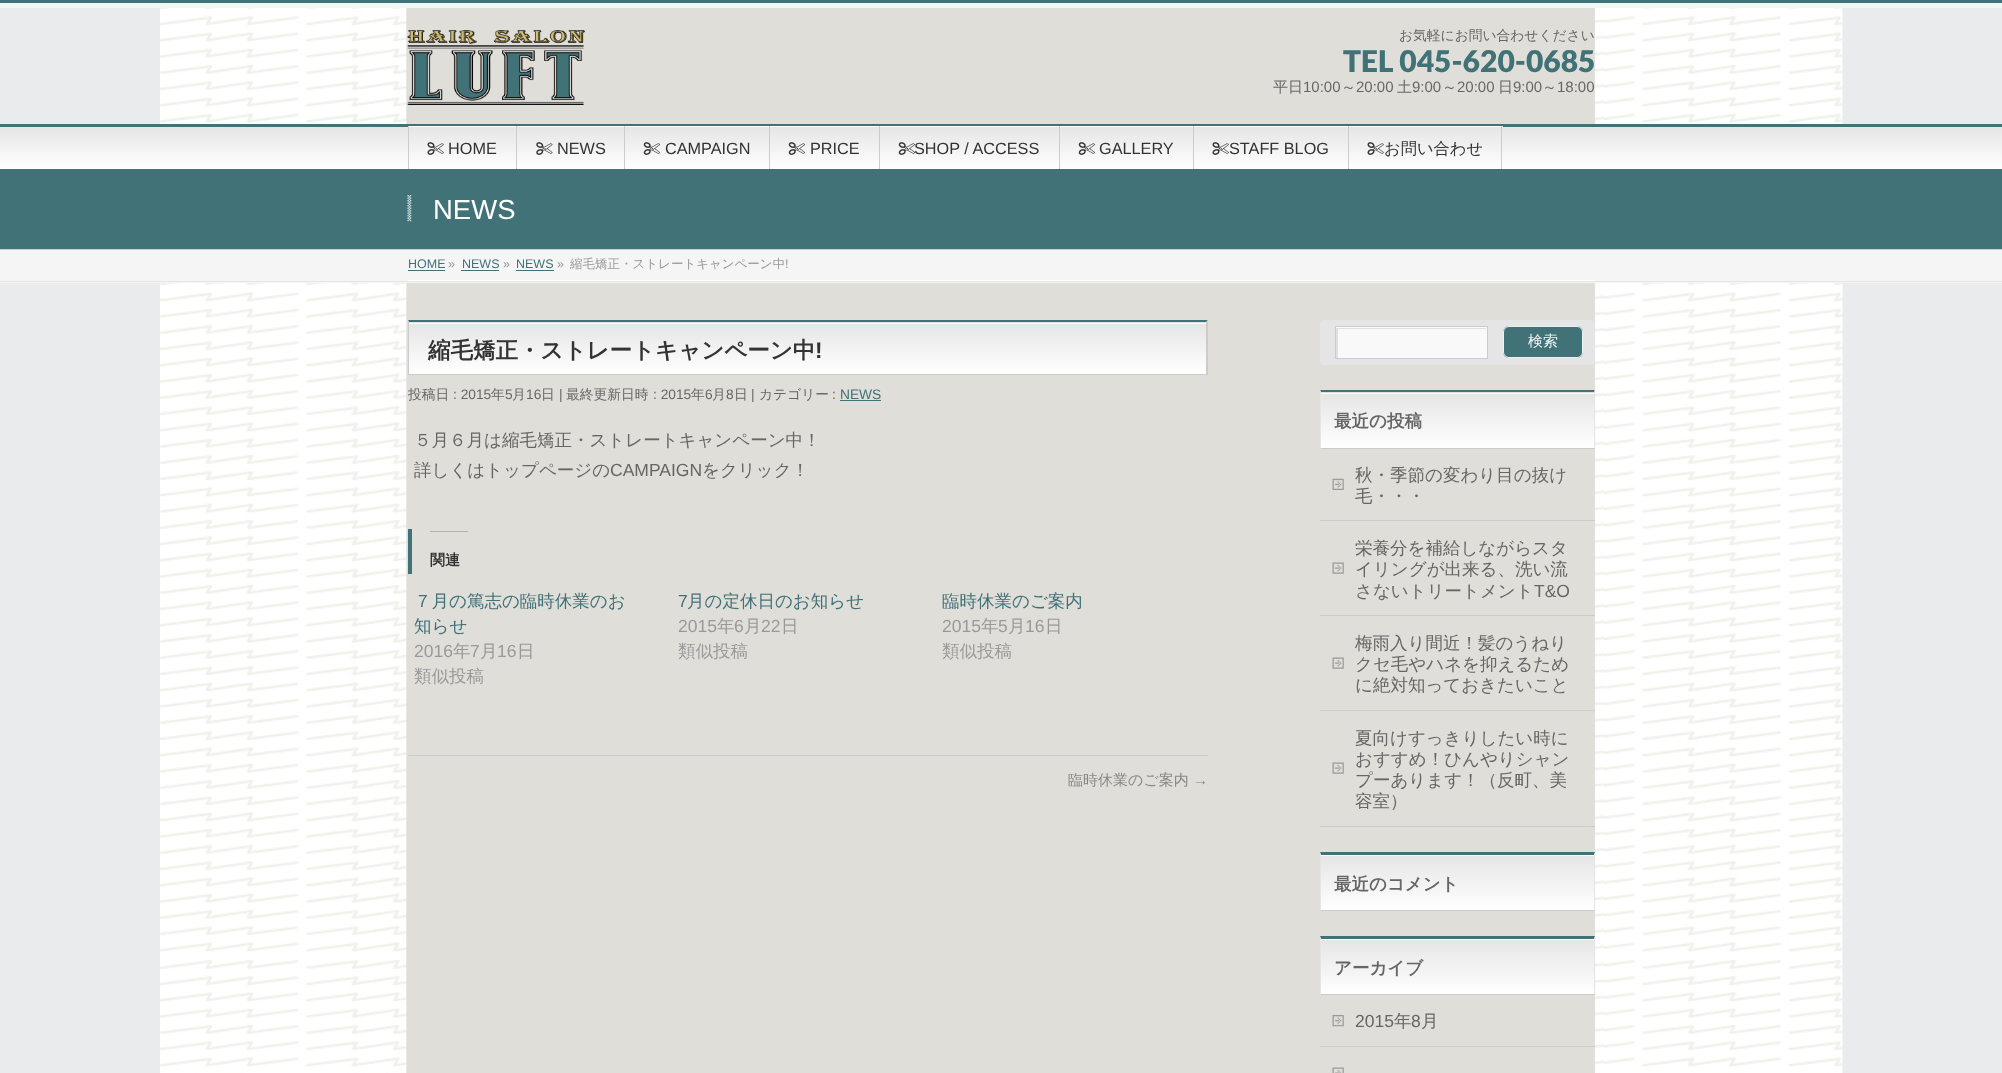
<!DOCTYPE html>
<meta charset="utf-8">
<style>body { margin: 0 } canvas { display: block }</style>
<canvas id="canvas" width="2002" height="1073"></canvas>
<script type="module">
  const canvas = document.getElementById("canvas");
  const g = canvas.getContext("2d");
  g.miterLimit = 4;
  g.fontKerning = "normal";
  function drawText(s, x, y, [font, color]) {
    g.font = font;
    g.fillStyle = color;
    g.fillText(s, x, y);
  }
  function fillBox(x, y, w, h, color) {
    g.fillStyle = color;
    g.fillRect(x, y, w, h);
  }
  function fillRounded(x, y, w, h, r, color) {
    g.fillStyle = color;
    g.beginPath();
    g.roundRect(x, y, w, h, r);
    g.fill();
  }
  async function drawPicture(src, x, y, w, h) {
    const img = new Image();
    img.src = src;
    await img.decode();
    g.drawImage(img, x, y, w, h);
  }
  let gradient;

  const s1 = ["500 13.75px WenQuanYi Zen Hei", "#666666"];
  const s2 = ["900 30px Lato", "#417277"];
  const s3 = ["500 15px WenQuanYi Zen Hei", "#666666"];
  const s4 = ["15px Liberation Sans", "#666666"];
  const s5 = ["16.25px Liberation Sans", "#333333"];
  const s6 = ["500 16.25px WenQuanYi Zen Hei", "#333333"];
  const s7 = ["27.5px Liberation Sans", "#FFFFFF"];
  const s8 = ["12.5px Liberation Sans", "#417277"];
  const s9 = ["12.5px Liberation Sans", "#999999"];
  const s10 = ["500 12.5px WenQuanYi Zen Hei", "#999999"];
  const s11 = ["bold 22.5px WenQuanYi Zen Hei", "#333333"];
  const s12 = ["bold 22.5px Liberation Sans", "#333333"];
  const s13 = ["13.75px Liberation Sans", "#666666"];
  const s14 = ["13.75px Liberation Sans", "#417277"];
  const s15 = ["500 17.5px WenQuanYi Zen Hei", "#666666"];
  const s16 = ["17.5px Liberation Sans", "#666666"];
  const s17 = ["bold 15px WenQuanYi Zen Hei", "#333333"];
  const s18 = ["500 17.5px WenQuanYi Zen Hei", "#417277"];
  const s19 = ["17.5px Liberation Sans", "#999999"];
  const s20 = ["500 17.5px WenQuanYi Zen Hei", "#999999"];
  const s21 = ["17.5px Liberation Sans", "#417277"];
  const s22 = ["500 15px WenQuanYi Zen Hei", "#888888"];
  const s23 = ["15px Liberation Sans", "#888888"];
  const s24 = ["500 15px WenQuanYi Zen Hei", "#F5F5F5"];
  const s25 = ["bold 17.5px WenQuanYi Zen Hei", "#666666"];

  fillBox(0, 0, 2002, 1073, "#EAEBED");
  await drawPicture("pic1.png", 160, 8, 1683, 1065);
  fillBox(0, 3, 2002, 5, "#F5F5F5");
  fillBox(0, 0, 2002, 3, "#417277");
  await drawPicture("pic2.png", 407, 30, 178, 75);
  drawText("お気軽にお問い合わせください", 1399, 40, s1);
  drawText("TEL 045-620-0685", 1343, 72, s2);
  drawText("平日", 1273, 92, s3);
  drawText("10:00", 1303, 92, s4);
  drawText("～", 1341, 92, s3);
  drawText("20:00", 1356, 92, s4);
  drawText("土", 1397, 92, s3);
  drawText("9:00", 1412, 92, s4);
  drawText("～", 1442, 92, s3);
  drawText("20:00", 1457, 92, s4);
  drawText("日", 1498, 92, s3);
  drawText("9:00", 1513, 92, s4);
  drawText("～", 1542, 92, s3);
  drawText("18:00", 1557, 92, s4);
  gradient = g.createLinearGradient(0, 126, 0, 169);
  gradient.addColorStop(0, "#E5E5E5");
  gradient.addColorStop(1, "#FFFFFF");
  g.fillStyle = gradient;
  g.fillRect(0, 127, 2002, 42);
  fillBox(0, 124, 2002, 3, "#417277");
  fillBox(408, 126, 1, 43, "#CCCCCC");
  gradient = g.createLinearGradient(409, 126, 409, 169);
  gradient.addColorStop(0, "#E5E5E5");
  gradient.addColorStop(1, "#FFFFFF");
  g.fillStyle = gradient;
  g.fillRect(409, 126, 109, 1);
  fillBox(409, 126, 107, 1, "#FFFFFF");
  fillBox(516, 126, 1, 43, "#CCCCCC");
  await drawPicture("pic3.png", 427, 142, 17, 13);
  drawText("HOME", 448, 154, s5);
  fillBox(518, 126, 106, 1, "#FFFFFF");
  fillBox(624, 126, 1, 43, "#CCCCCC");
  await drawPicture("pic4.png", 536, 142, 17, 13);
  drawText("NEWS", 557, 154, s5);
  fillBox(625, 126, 144, 1, "#FFFFFF");
  fillBox(769, 126, 1, 43, "#CCCCCC");
  await drawPicture("pic5.png", 643, 142, 17, 13);
  drawText("CAMPAIGN", 665, 154, s5);
  fillBox(770, 126, 109, 1, "#FFFFFF");
  fillBox(879, 126, 1, 43, "#CCCCCC");
  await drawPicture("pic5.png", 788, 142, 17, 13);
  drawText("PRICE", 810, 154, s5);
  fillBox(880, 126, 179, 1, "#FFFFFF");
  fillBox(1059, 126, 1, 43, "#CCCCCC");
  await drawPicture("pic5.png", 898, 142, 17, 13);
  drawText("SHOP / ACCESS", 914, 154, s5);
  fillBox(1060, 126, 133, 1, "#FFFFFF");
  fillBox(1193, 126, 1, 43, "#CCCCCC");
  await drawPicture("pic5.png", 1078, 142, 17, 13);
  drawText("GALLERY", 1099, 154, s5);
  fillBox(1194, 126, 154, 1, "#FFFFFF");
  fillBox(1348, 126, 1, 43, "#CCCCCC");
  await drawPicture("pic3.png", 1212, 142, 17, 13);
  drawText("STAFF BLOG", 1229, 154, s5);
  gradient = g.createLinearGradient(1349, 126, 1349, 169);
  gradient.addColorStop(0, "#E5E5E5");
  gradient.addColorStop(1, "#FFFFFF");
  g.fillStyle = gradient;
  g.fillRect(1349, 126, 154, 1);
  fillBox(1349, 126, 152, 1, "#FFFFFF");
  fillBox(1501, 126, 1, 43, "#CCCCCC");
  await drawPicture("pic3.png", 1367, 142, 17, 13);
  drawText("お問い合わせ", 1384, 154, s6);
  fillBox(0, 169, 2002, 80, "#417277");
  fillBox(0, 249, 2002, 1, "#CCCCCC");
  await drawPicture("pic6.png", 407, 195, 5, 27);
  drawText("NEWS", 433, 219, s7);
  fillBox(0, 250, 2002, 33, "#F5F5F5");
  fillBox(0, 281, 2002, 1, "#E5E5E5");
  fillBox(408, 280, 1187, 1, "#FFFFFF");
  drawText("HOME", 408, 268, s8);
  fillBox(408, 270, 37, 1, "#417277");
  drawText("»", 448, 268, s9);
  drawText("NEWS", 462, 268, s8);
  fillBox(461, 270, 38, 1, "#417277");
  drawText("»", 503, 268, s9);
  drawText("NEWS", 516, 268, s8);
  fillBox(516, 270, 38, 1, "#417277");
  drawText("»", 557, 268, s9);
  drawText("縮毛矯正・ストレートキャンペーン中", 570, 268, s10);
  drawText("!", 785, 268, s9);
  gradient = g.createLinearGradient(409, 323, 409, 374);
  gradient.addColorStop(0, "#E5E5E5");
  gradient.addColorStop(1, "#FFFFFF");
  g.fillStyle = gradient;
  g.fillRect(409, 324, 797, 50);
  fillBox(409, 323, 797, 1, "#FFFFFF");
  g.fillStyle = "#417277";
  g.beginPath();
  g.moveTo(408, 320);
  g.lineTo(1208, 320);
  g.lineTo(1206, 322);
  g.lineTo(409, 322);
  g.closePath();
  g.fill();
  g.fillStyle = "#CCCCCC";
  g.beginPath();
  g.moveTo(1208, 320);
  g.lineTo(1208, 375);
  g.lineTo(1206, 374);
  g.lineTo(1206, 322);
  g.closePath();
  g.fill();
  fillBox(408, 374, 800, 1, "#CCCCCC");
  g.beginPath();
  g.moveTo(408, 375);
  g.lineTo(408, 320);
  g.lineTo(409, 322);
  g.lineTo(409, 374);
  g.closePath();
  g.fill();
  drawText("縮毛矯正・ストレートキャンペーン中", 428, 358, s11);
  drawText("!", 815, 358, s12);
  drawText("投稿日", 408, 399, s1);
  drawText(": 2015", 453, 399, s13);
  drawText("年", 491, 399, s1);
  drawText("5", 505, 399, s13);
  drawText("月", 512, 399, s1);
  drawText("16", 526, 399, s13);
  drawText("日", 541, 399, s1);
  drawText("|", 559, 399, s13);
  drawText("最終更新日時", 566, 399, s1);
  drawText(": 2015", 653, 399, s13);
  drawText("年", 691, 399, s1);
  drawText("6", 705, 399, s13);
  drawText("月", 712, 399, s1);
  drawText("8", 726, 399, s13);
  drawText("日", 734, 399, s1);
  drawText("|", 751, 399, s13);
  drawText("カテゴリー", 759, 399, s1);
  drawText(":", 832, 399, s13);
  drawText("NEWS", 840, 399, s14);
  fillBox(840, 400, 41, 1, "#417277");
  drawText("５月６月は縮毛矯正・ストレートキャンペーン中！", 414, 446, s15);
  drawText("詳しくはトップページの", 414, 476, s15);
  drawText("CAMPAIGN", 610, 476, s16);
  drawText("をクリック！", 702, 476, s15);
  fillBox(408, 529, 4, 45, "#417277");
  fillBox(430, 531, 38, 1, "#B2B2AE");
  drawText("関連", 430, 565, s17);
  drawText("７月の篤志の臨時休業のお", 414, 607, s18);
  drawText("知らせ", 414, 632, s18);
  drawText("2016", 414, 657, s19);
  drawText("年", 453, 657, s20);
  drawText("7", 470, 657, s19);
  drawText("月", 480, 657, s20);
  drawText("16", 497, 657, s19);
  drawText("日", 517, 657, s20);
  drawText("類似投稿", 414, 682, s20);
  drawText("7", 678, 607, s21);
  drawText("月の定休日のお知らせ", 687, 607, s18);
  drawText("2015", 678, 632, s19);
  drawText("年", 717, 632, s20);
  drawText("6", 734, 632, s19);
  drawText("月", 744, 632, s20);
  drawText("22", 761, 632, s19);
  drawText("日", 781, 632, s20);
  drawText("類似投稿", 678, 657, s20);
  drawText("臨時休業のご案内", 942, 607, s18);
  drawText("2015", 942, 632, s19);
  drawText("年", 981, 632, s20);
  drawText("5", 998, 632, s19);
  drawText("月", 1008, 632, s20);
  drawText("16", 1025, 632, s19);
  drawText("日", 1045, 632, s20);
  drawText("類似投稿", 942, 657, s20);
  fillBox(408, 755, 800, 1, "#CCCCCC");
  drawText("臨時休業のご案内", 1068, 785, s22);
  drawText("→", 1193, 785, s23);
  fillRounded(1320, 320, 275, 45, 4, "#E5E5E5");
  fillBox(1336, 327, 151, 31, "#F9F9F9");
  g.save();
  g.beginPath();
  g.rect(1336, 328, 150, 30);
  g.clip();
  g.fillStyle = "#E0E0E0";
  g.beginPath();
  g.moveTo(1324, 320);
  g.bezierCurveTo(1322, 320, 1320, 322, 1320, 324);
  g.lineTo(1320, 361);
  g.bezierCurveTo(1320, 363, 1322, 365, 1324, 365);
  g.lineTo(1591, 365);
  g.bezierCurveTo(1593, 365, 1595, 363, 1595, 361);
  g.lineTo(1595, 324);
  g.bezierCurveTo(1595, 322, 1593, 320, 1591, 320);
  g.closePath();
  g.moveTo(1338, 329);
  g.lineTo(1338, 359);
  g.lineTo(1488, 359);
  g.lineTo(1488, 329);
  g.closePath();
  g.fill("evenodd");
  g.restore();
  g.strokeStyle = "#CCCCCC";
  g.strokeRect(1335.5, 326.5, 152, 32);
  fillRounded(1503, 326, 80, 32, 6, "#417277");
  g.beginPath();
  g.roundRect(1503.5, 326.5, 79, 31, 5.5);
  g.strokeStyle = "rgba(255, 255, 255, 0.9)";
  g.stroke();
  drawText("検索", 1528, 346, s24);
  gradient = g.createLinearGradient(1321, 393, 1321, 448);
  gradient.addColorStop(0, "#E5E5E5");
  gradient.addColorStop(1, "#FFFFFF");
  g.fillStyle = gradient;
  g.fillRect(1321, 394, 273, 54);
  fillBox(1321, 393, 273, 1, "#FFFFFF");
  g.fillStyle = "#417277";
  g.beginPath();
  g.moveTo(1320, 390);
  g.lineTo(1595, 390);
  g.lineTo(1594, 392);
  g.lineTo(1321, 392);
  g.closePath();
  g.fill();
  g.fillStyle = "#E5E5E5";
  g.beginPath();
  g.moveTo(1595, 390);
  g.lineTo(1595, 449);
  g.lineTo(1594, 448);
  g.lineTo(1594, 392);
  g.closePath();
  g.fill();
  fillBox(1320, 448, 275, 1, "#CCCCCC");
  g.fillStyle = "#E5E5E5";
  g.beginPath();
  g.moveTo(1320, 449);
  g.lineTo(1320, 390);
  g.lineTo(1321, 392);
  g.lineTo(1321, 448);
  g.closePath();
  g.fill();
  drawText("最近の投稿", 1334, 427, s25);
  fillBox(1320, 520, 275, 1, "#CCCCCC");
  await drawPicture("pic7.png", 1332, 478, 12, 12);
  drawText("秋・季節の変わり目の抜け", 1355, 481, s15);
  drawText("毛・・・", 1355, 502, s15);
  fillBox(1320, 615, 275, 1, "#CCCCCC");
  await drawPicture("pic8.png", 1332, 562, 12, 12);
  drawText("栄養分を補給しながらスタ", 1355, 554, s15);
  drawText("イリングが出来る、洗い流", 1355, 575, s15);
  drawText("さないトリートメント", 1355, 597, s15);
  drawText("T&O", 1534, 597, s16);
  fillBox(1320, 710, 275, 1, "#CCCCCC");
  await drawPicture("pic8.png", 1332, 657, 12, 12);
  drawText("梅雨入り間近！髪のうねり", 1355, 649, s15);
  drawText("クセ毛やハネを抑えるため", 1355, 670, s15);
  drawText("に絶対知っておきたいこと", 1355, 691, s15);
  fillBox(1320, 826, 275, 1, "#CCCCCC");
  await drawPicture("pic8.png", 1332, 762, 12, 12);
  drawText("夏向けすっきりしたい時に", 1355, 744, s15);
  drawText("おすすめ！ひんやりシャン", 1355, 765, s15);
  drawText("プーあります！（反町、美", 1355, 786, s15);
  drawText("容室）", 1355, 807, s15);
  gradient = g.createLinearGradient(1321, 855, 1321, 910);
  gradient.addColorStop(0, "#E5E5E5");
  gradient.addColorStop(1, "#FFFFFF");
  g.fillStyle = gradient;
  g.fillRect(1321, 856, 273, 54);
  fillBox(1321, 855, 273, 1, "#FFFFFF");
  g.fillStyle = "#417277";
  g.beginPath();
  g.moveTo(1320, 852);
  g.lineTo(1595, 852);
  g.lineTo(1594, 855);
  g.lineTo(1321, 855);
  g.closePath();
  g.fill();
  g.fillStyle = "#E5E5E5";
  g.beginPath();
  g.moveTo(1595, 852);
  g.lineTo(1595, 911);
  g.lineTo(1594, 910);
  g.lineTo(1594, 855);
  g.closePath();
  g.fill();
  fillBox(1320, 910, 275, 1, "#CCCCCC");
  g.fillStyle = "#E5E5E5";
  g.beginPath();
  g.moveTo(1320, 911);
  g.lineTo(1320, 852);
  g.lineTo(1321, 855);
  g.lineTo(1321, 910);
  g.closePath();
  g.fill();
  drawText("最近のコメント", 1334, 890, s25);
  gradient = g.createLinearGradient(1321, 939, 1321, 994);
  gradient.addColorStop(0, "#E5E5E5");
  gradient.addColorStop(1, "#FFFFFF");
  g.fillStyle = gradient;
  g.fillRect(1321, 940, 273, 54);
  fillBox(1321, 939, 273, 1, "#FFFFFF");
  g.fillStyle = "#417277";
  g.beginPath();
  g.moveTo(1320, 936);
  g.lineTo(1595, 936);
  g.lineTo(1594, 939);
  g.lineTo(1321, 939);
  g.closePath();
  g.fill();
  g.fillStyle = "#E5E5E5";
  g.beginPath();
  g.moveTo(1595, 936);
  g.lineTo(1595, 995);
  g.lineTo(1594, 994);
  g.lineTo(1594, 939);
  g.closePath();
  g.fill();
  fillBox(1320, 994, 275, 1, "#CCCCCC");
  g.fillStyle = "#E5E5E5";
  g.beginPath();
  g.moveTo(1320, 995);
  g.lineTo(1320, 936);
  g.lineTo(1321, 939);
  g.lineTo(1321, 994);
  g.closePath();
  g.fill();
  drawText("アーカイブ", 1334, 974, s25);
  fillBox(1320, 1046, 275, 1, "#CCCCCC");
  await drawPicture("pic9.png", 1332, 1015, 12, 12);
  drawText("2015", 1355, 1027, s16);
  drawText("年", 1394, 1027, s15);
  drawText("8", 1411, 1027, s16);
  drawText("月", 1421, 1027, s15);
  await drawPicture("pic10.png", 1332, 1067, 12, 6);
</script>
